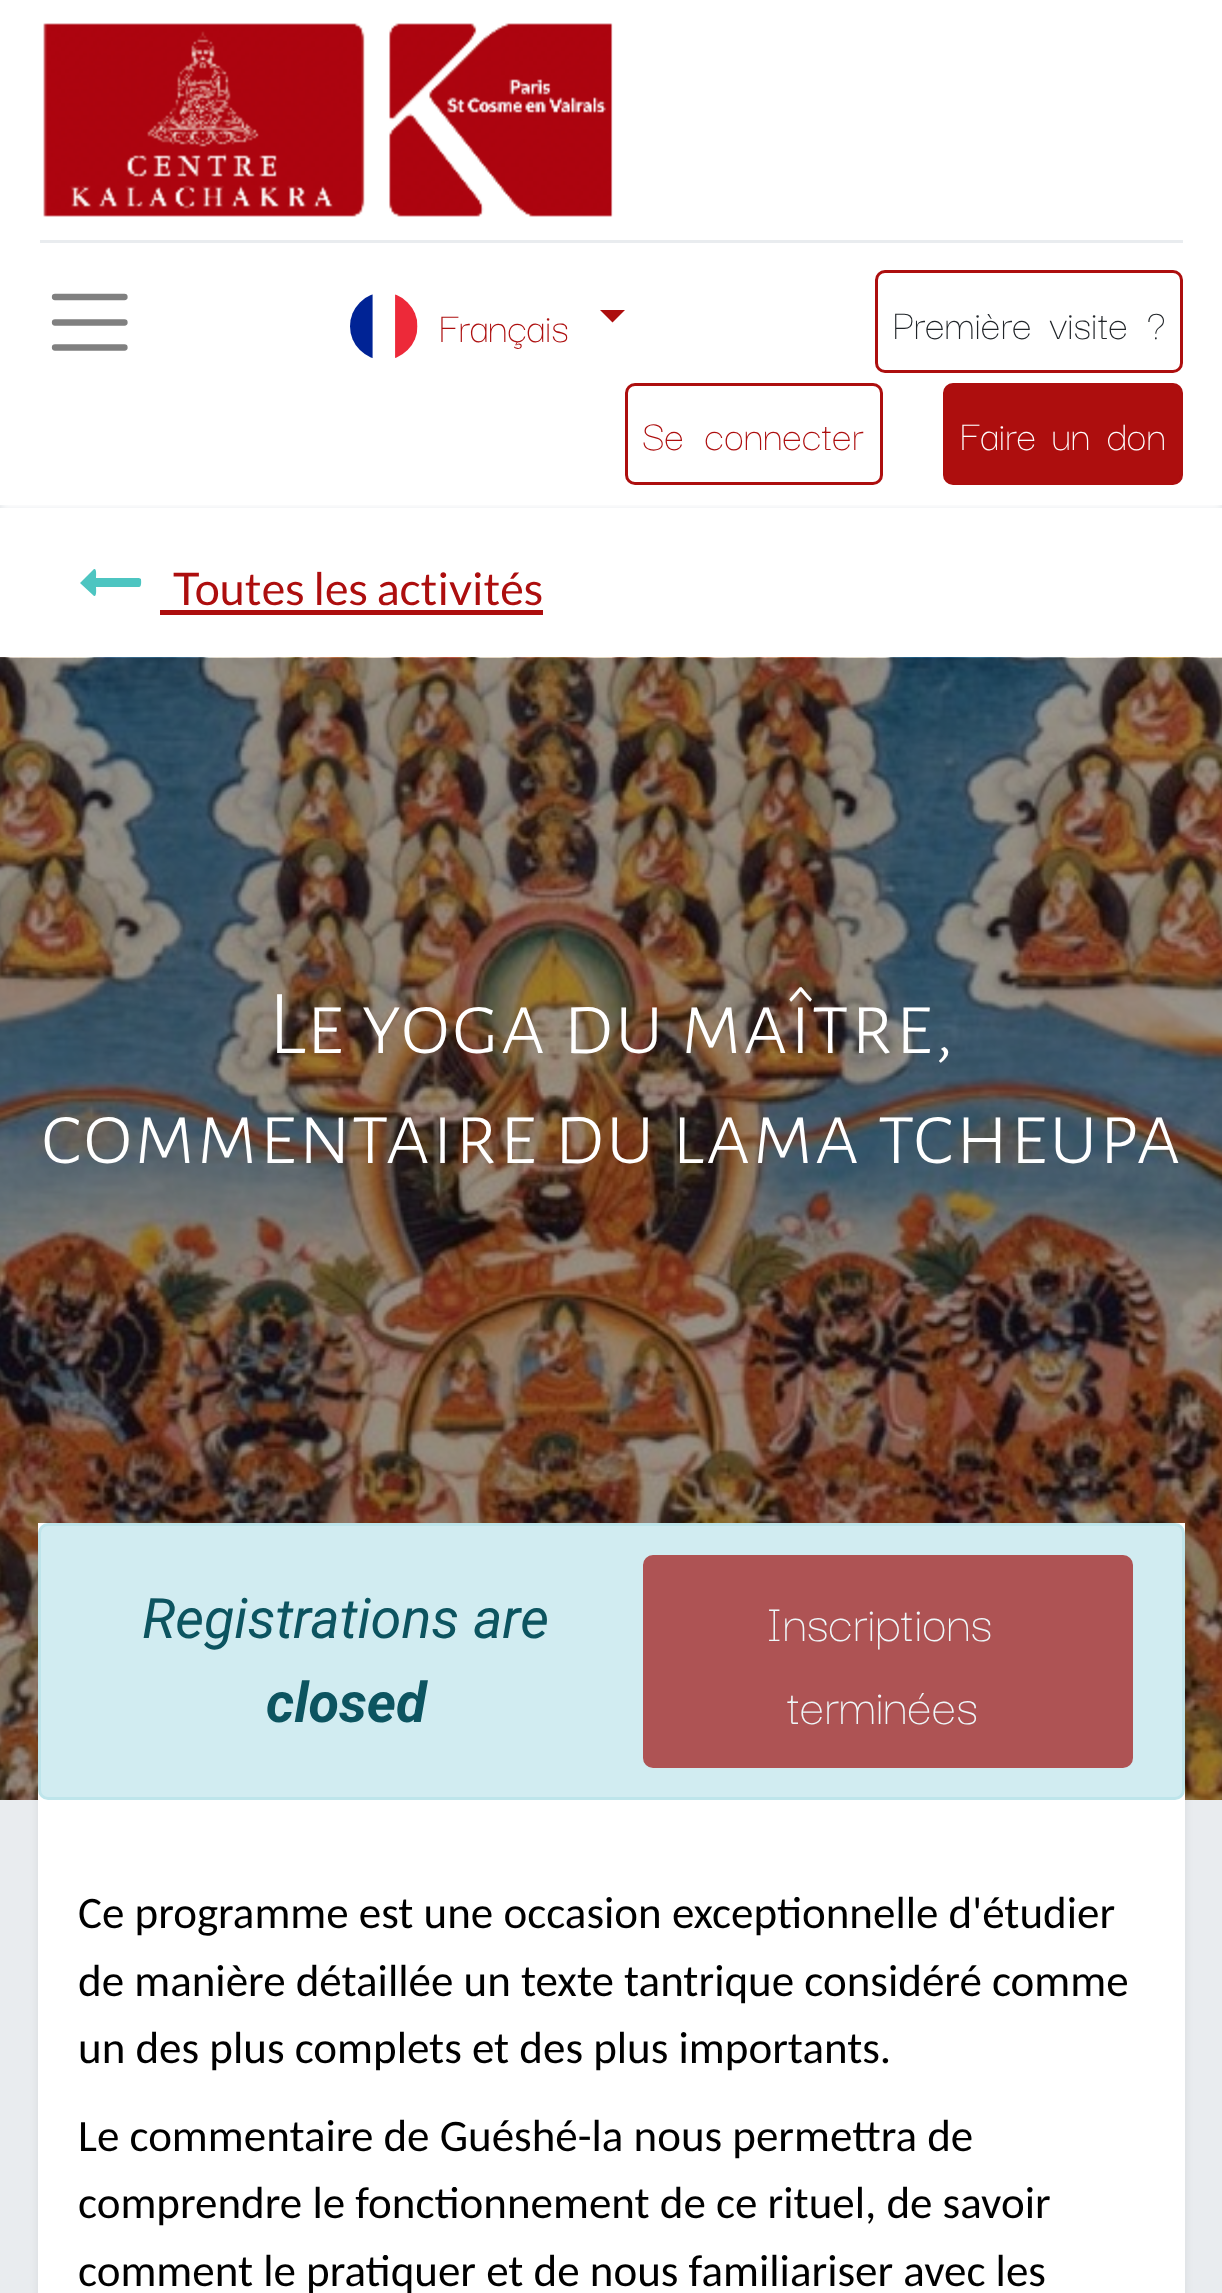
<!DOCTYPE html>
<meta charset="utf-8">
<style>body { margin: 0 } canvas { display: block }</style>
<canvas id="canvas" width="1222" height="2293"></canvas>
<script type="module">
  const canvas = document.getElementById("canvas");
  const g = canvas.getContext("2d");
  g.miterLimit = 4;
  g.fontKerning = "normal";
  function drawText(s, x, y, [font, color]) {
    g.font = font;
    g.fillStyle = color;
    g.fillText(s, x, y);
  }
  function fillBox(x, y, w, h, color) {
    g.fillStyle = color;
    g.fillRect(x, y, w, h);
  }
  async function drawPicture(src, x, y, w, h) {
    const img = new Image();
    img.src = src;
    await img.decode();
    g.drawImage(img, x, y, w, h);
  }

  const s1 = ["300 45px Darker Grotesque", "#AD0E0E"];
  const s2 = ["300 45px Darker Grotesque", "#212529"];
  const s3 = ["300 45px Darker Grotesque", "#FFFFFF"];
  const s4 = ["45px Lato", "#AD0E0E"];
  const s5 = ["300 92px Alegreya Sans SC", "#FFFFFF"];
  const s6 = ["italic 55.75px Roboto", "#0C5460"];
  const s7 = ["italic bold 55.75px Roboto", "#0C5460"];
  const s8 = ["300 55.75px Darker Grotesque", "#EFF8FA"];
  const s9 = ["45px Carlito", "#000000"];

  fillBox(0, 0, 1222, 2293, "#FFFFFF");
  fillBox(0, 505, 1222, 3, "#DEE2E6");
  g.fillStyle = "#FFFFFF";
  g.filter = "blur(5px)";
  g.beginPath();
  g.rect(0, 5, 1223, 505);
  g.fill();
  g.filter = "none";
  await drawPicture("pic1.png", 43, 23, 570, 194);
  fillBox(40, 240, 1143, 3, "#E9ECEF");
  g.beginPath();
  g.moveTo(55, 297);
  g.lineTo(124.5, 297);
  g.moveTo(55, 322.5);
  g.lineTo(124.5, 322.5);
  g.moveTo(55, 347.5);
  g.lineTo(124.5, 347.5);
  g.strokeStyle = "#808080";
  g.lineWidth = 6.3;
  g.lineCap = "round";
  g.stroke();
  await drawPicture("pic2.png", 350, 294, 68, 65);
  drawText("Français", 438, 342, s1);
  g.beginPath();
  g.moveTo(600, 310);
  g.lineTo(625, 310);
  g.lineTo(612.5, 322.5);
  g.closePath();
  g.fill();
  g.beginPath();
  g.roundRect(876.5, 271.5, 305, 100, 8.5);
  g.strokeStyle = "#AD0E0E";
  g.lineWidth = 3;
  g.stroke();
  g.wordSpacing = "7px";
  drawText("Première visite ?", 892, 339, s2);
  g.beginPath();
  g.roundRect(626.5, 384.5, 255, 99, 8.5);
  g.stroke();
  g.wordSpacing = "9px";
  drawText("Se connecter", 642, 450, s1);
  g.beginPath();
  g.roundRect(944.5, 384.5, 237, 99, 8.5);
  g.fill();
  g.stroke();
  g.wordSpacing = "4px";
  drawText("Faire un don", 959, 450, s3);
  g.fillStyle = "#4DC5C1";
  g.beginPath();
  g.moveTo(141, 579);
  g.bezierCurveTo(141, 580, 142, 587, 139, 587);
  g.lineTo(96, 587);
  g.bezierCurveTo(96, 588, 97, 597, 94, 596);
  g.lineTo(80, 583);
  g.lineTo(94, 569);
  g.bezierCurveTo(97, 568, 96, 577, 96, 578);
  g.lineTo(139, 578);
  g.closePath();
  g.fill();
  g.wordSpacing = "0px";
  drawText("Toutes les activités", 173, 605, s4);
  fillBox(160, 610, 383, 5, "#AD0E0E");
  await drawPicture("pic3.png", 0, 657, 1222, 1143);
  drawText("Le yoga du maître,", 268, 1053, s5);
  drawText("commentaire du lama tcheupa", 40, 1163, s5);
  fillBox(38, 1523, 1147, 277, "#FFFFFF");
  g.fillStyle = "#D1ECF1";
  g.beginPath();
  g.roundRect(39.5, 1524.5, 1144, 274, 8.5);
  g.fill();
  g.strokeStyle = "#BEE5EB";
  g.stroke();
  drawText("Registrations are", 142, 1638, s6);
  drawText("closed", 266, 1722, s7);
  g.fillStyle = "#AE5354";
  g.beginPath();
  g.roundRect(644.5, 1556.5, 487, 210, 8.5);
  g.fill();
  g.strokeStyle = "#AF5354";
  g.stroke();
  drawText("Inscriptions", 766, 1641, s8);
  drawText("terminées", 787, 1724, s8);
  fillBox(0, 1800, 1222, 493, "#E9ECEF");
  g.save();
  g.beginPath();
  g.rect(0, 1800, 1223, 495);
  g.clip();
  g.fillStyle = "rgba(0, 0, 0, 0.07)";
  g.filter = "blur(5px)";
  g.beginPath();
  g.rect(38, 1745, 1147, 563);
  g.fill();
  g.filter = "none";
  g.restore();
  fillBox(38, 1800, 1147, 493, "#FFFFFF");
  drawText("Ce programme est une occasion exceptionnelle d'étudier", 78, 1928, s9);
  drawText("de manière détaillée un texte tantrique considéré comme", 78, 1996, s9);
  drawText("un des plus complets et des plus importants.", 78, 2063, s9);
  drawText("Le commentaire de Guéshé-la nous permettra de", 78, 2151, s9);
  drawText("comprendre le fonctionnement de ce rituel, de savoir", 78, 2218, s9);
  drawText("comment le pratiquer et de nous familiariser avec les", 78, 2286, s9);
</script>
